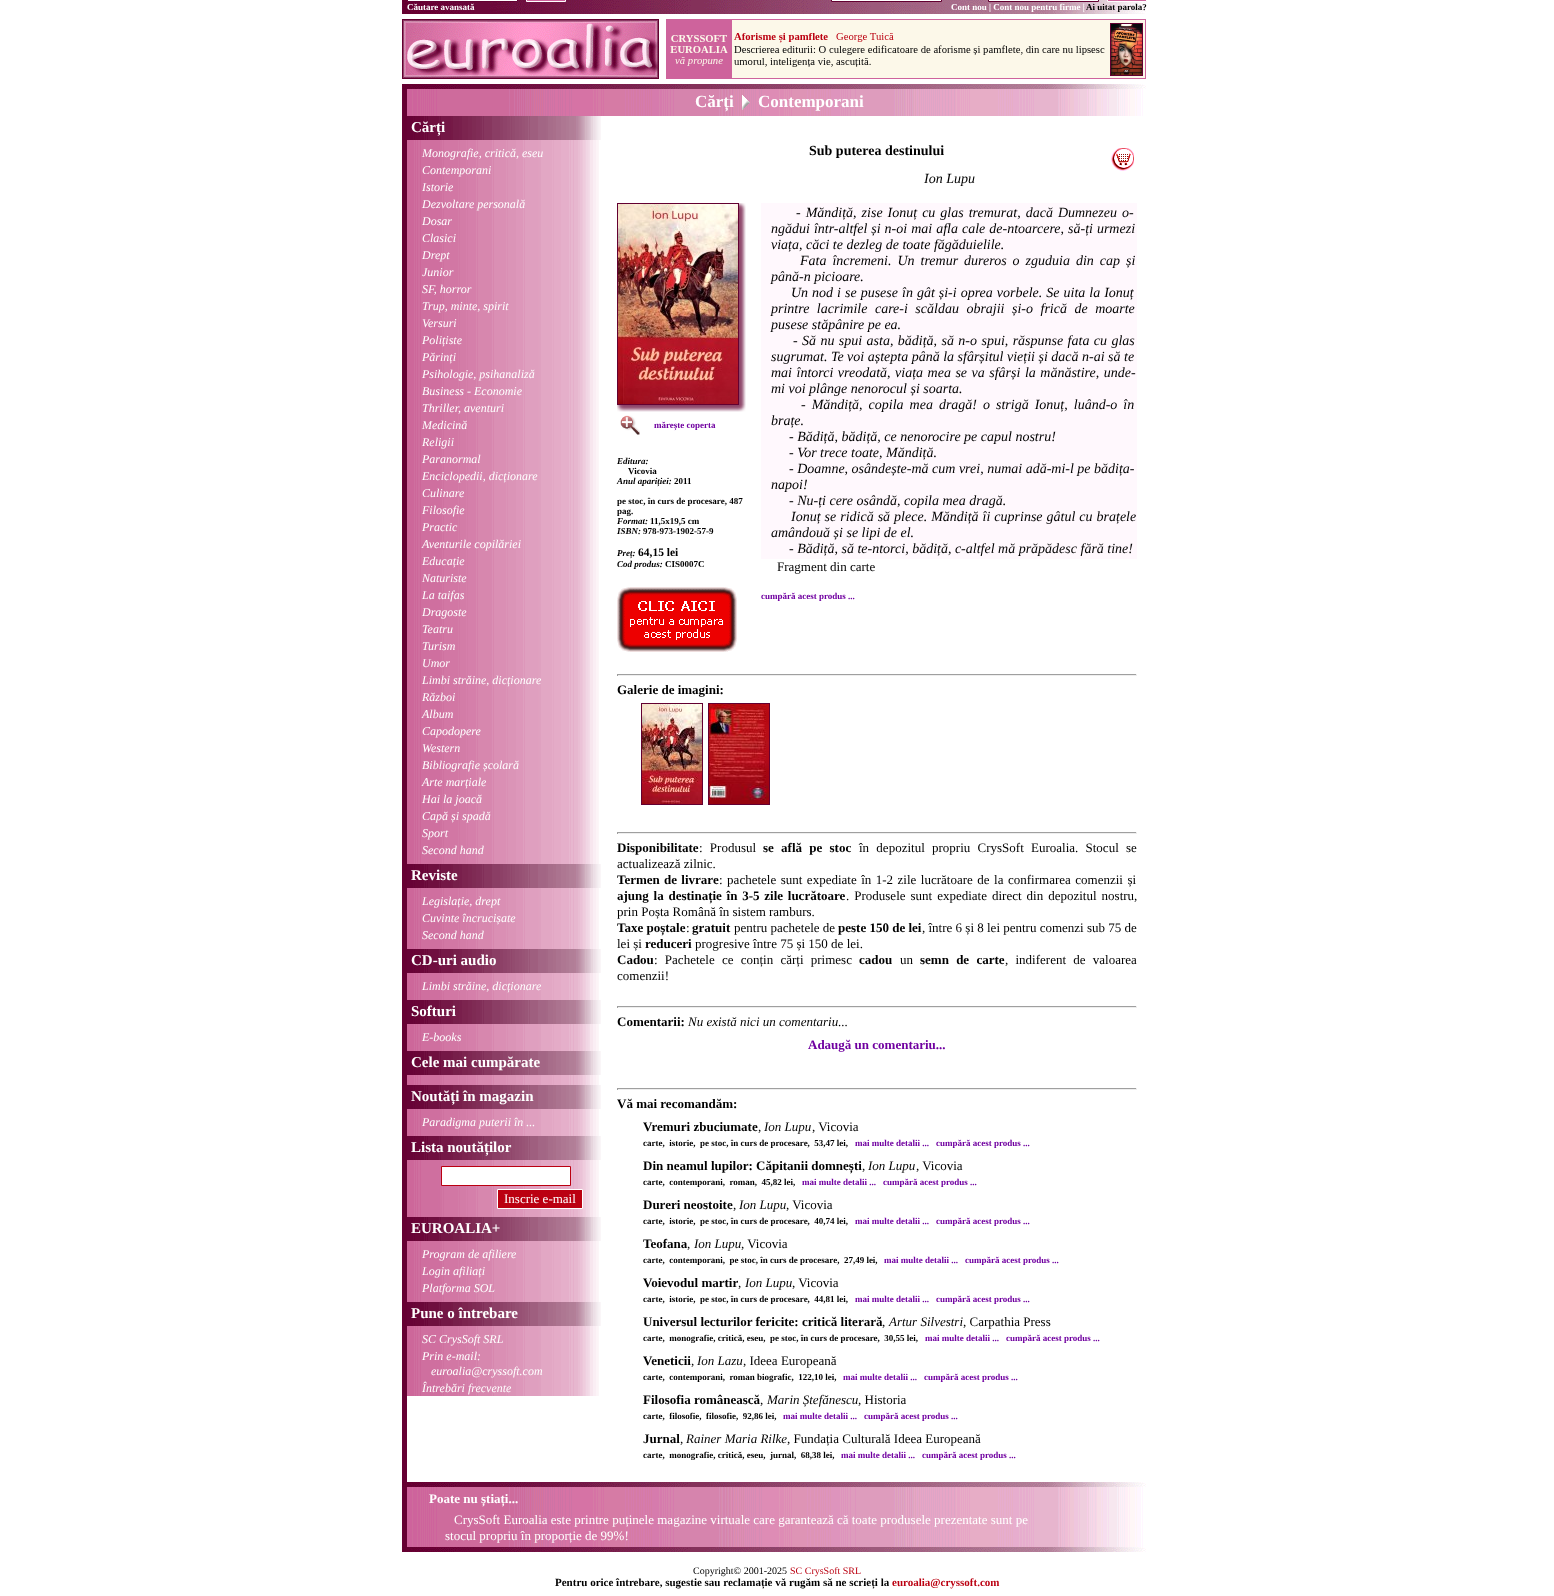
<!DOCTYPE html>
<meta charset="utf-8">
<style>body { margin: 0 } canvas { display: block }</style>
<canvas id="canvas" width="1554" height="1596"></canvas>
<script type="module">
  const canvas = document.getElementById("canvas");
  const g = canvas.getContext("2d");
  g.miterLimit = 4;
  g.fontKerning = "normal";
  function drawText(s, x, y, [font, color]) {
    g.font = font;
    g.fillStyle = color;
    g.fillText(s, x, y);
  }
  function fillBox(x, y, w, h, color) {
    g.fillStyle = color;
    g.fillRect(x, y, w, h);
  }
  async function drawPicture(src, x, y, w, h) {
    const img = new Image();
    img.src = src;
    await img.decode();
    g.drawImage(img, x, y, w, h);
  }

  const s1 = ["bold 9px Liberation Serif", "#FFFFFF"];
  const s2 = ["bold 9px Liberation Serif", "#000000"];
  const s3 = ["bold 17px Liberation Serif", "#FFFFFF"];
  const s4 = ["bold 15px Liberation Serif", "#FFFFFF"];
  const s5 = ["italic 12px Liberation Serif", "#FFFFFF"];
  const s6 = ["13px Liberation Serif", "#FFFFFF"];
  const s7 = ["bold 14px Liberation Serif", "#000000"];
  const s8 = ["italic 14px Liberation Serif", "#000000"];
  const s9 = ["bold 9px Liberation Serif", "#7000A0"];
  const s10 = ["italic bold 9px Liberation Serif", "#000000"];
  const s11 = ["bold 11.5px Liberation Serif", "#000000"];
  const s12 = ["13px Liberation Serif", "#000000"];
  const s13 = ["bold 13px Liberation Serif", "#000000"];
  const s14 = ["italic 13px Liberation Serif", "#000000"];
  const s15 = ["bold 13px Liberation Serif", "#7000A0"];
  const s16 = ["bold 13px Liberation Serif", "#FFFFFF"];
  const s17 = ["10px Liberation Serif", "#000000"];
  const s18 = ["10px Liberation Serif", "#BB0011"];
  const s19 = ["bold 11px Liberation Serif", "#000000"];
  const s20 = ["bold 11px Liberation Serif", "#BB0011"];

  fillBox(0, 0, 1554, 1596, "#FFFFFF");
  await drawPicture("pic1.png", 402, 0, 744, 12);
  g.beginPath();
  g.rect(407.5, -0.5, 110, 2);
  g.fill();
  g.strokeStyle = "#630031";
  g.stroke();
  g.fillStyle = "#CE639C";
  g.beginPath();
  g.rect(526.5, -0.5, 39, 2);
  g.fill();
  g.strokeStyle = "#FFFFFF";
  g.stroke();
  g.fillStyle = "#FFFFFF";
  g.beginPath();
  g.rect(831.5, -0.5, 110, 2);
  g.fill();
  g.strokeStyle = "#630031";
  g.stroke();
  g.beginPath();
  g.rect(988.5, -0.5, 110, 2);
  g.fill();
  g.stroke();
  g.fillStyle = "#CE639C";
  g.beginPath();
  g.rect(1107.5, -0.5, 39, 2);
  g.fill();
  g.strokeStyle = "#FFFFFF";
  g.stroke();
  drawText("Căutare avansată", 407, 10, s1);
  drawText("Cont nou | Cont nou pentru firme |", 951, 10, s1);
  drawText("Ai uitat parola?", 1086, 10, s2);
  await drawPicture("pic2.png", 402, 12, 743, 2);
  await drawPicture("pic3.png", 402, 19, 257, 60);
  await drawPicture("pic4.png", 666, 19, 480, 60);
  await drawPicture("pic5.png", 402, 84, 744, 5);
  fillBox(402, 89, 5, 1393, "#660033");
  await drawPicture("pic6.png", 407, 89, 736, 1);
  await drawPicture("pic7.png", 407, 90, 736, 25);
  drawText("Cărți", 695, 107, s3);
  await drawPicture("pic8.png", 742, 95, 8, 15);
  drawText("Contemporani", 758, 107, s3);
  await drawPicture("pic6.png", 407, 115, 736, 1);
  await drawPicture("pic9.png", 407, 116, 195, 1280);
  await drawPicture("pic10.png", 407, 116, 194, 3);
  await drawPicture("pic11.png", 407, 119, 194, 17);
  drawText("Cărți", 411, 132, s4);
  await drawPicture("pic12.png", 407, 136, 194, 4);
  drawText("Monografie, critică, eseu", 422, 157, s5);
  drawText("Contemporani", 422, 174, s5);
  drawText("Istorie", 422, 191, s5);
  drawText("Dezvoltare personală", 422, 208, s5);
  drawText("Dosar", 422, 225, s5);
  drawText("Clasici", 422, 242, s5);
  drawText("Drept", 422, 259, s5);
  drawText("Junior", 422, 276, s5);
  drawText("SF, horror", 422, 293, s5);
  drawText("Trup, minte, spirit", 422, 310, s5);
  drawText("Versuri", 422, 327, s5);
  drawText("Polițiste", 422, 344, s5);
  drawText("Părinți", 422, 361, s5);
  drawText("Psihologie, psihanaliză", 422, 378, s5);
  drawText("Business - Economie", 422, 395, s5);
  drawText("Thriller, aventuri", 422, 412, s5);
  drawText("Medicină", 422, 429, s5);
  drawText("Religii", 422, 446, s5);
  drawText("Paranormal", 422, 463, s5);
  drawText("Enciclopedii, dicționare", 422, 480, s5);
  drawText("Culinare", 422, 497, s5);
  drawText("Filosofie", 422, 514, s5);
  drawText("Practic", 422, 531, s5);
  drawText("Aventurile copilăriei", 422, 548, s5);
  drawText("Educație", 422, 565, s5);
  drawText("Naturiste", 422, 582, s5);
  drawText("La taifas", 422, 599, s5);
  drawText("Dragoste", 422, 616, s5);
  drawText("Teatru", 422, 633, s5);
  drawText("Turism", 422, 650, s5);
  drawText("Umor", 422, 667, s5);
  drawText("Limbi străine, dicționare", 422, 684, s5);
  drawText("Război", 422, 701, s5);
  drawText("Album", 422, 718, s5);
  drawText("Capodopere", 422, 735, s5);
  drawText("Western", 422, 752, s5);
  drawText("Bibliografie școlară", 422, 769, s5);
  drawText("Arte marțiale", 422, 786, s5);
  drawText("Hai la joacă", 422, 803, s5);
  drawText("Capă și spadă", 422, 820, s5);
  drawText("Sport", 422, 837, s5);
  drawText("Second hand", 422, 854, s5);
  await drawPicture("pic10.png", 407, 864, 194, 3);
  await drawPicture("pic11.png", 407, 867, 194, 17);
  drawText("Reviste", 411, 880, s4);
  await drawPicture("pic12.png", 407, 884, 194, 4);
  drawText("Legislație, drept", 422, 905, s5);
  drawText("Cuvinte încrucișate", 422, 922, s5);
  drawText("Second hand", 422, 939, s5);
  await drawPicture("pic10.png", 407, 949, 194, 3);
  await drawPicture("pic11.png", 407, 952, 194, 17);
  drawText("CD-uri audio", 411, 965, s4);
  await drawPicture("pic12.png", 407, 969, 194, 4);
  drawText("Limbi străine, dicționare", 422, 990, s5);
  await drawPicture("pic10.png", 407, 1000, 194, 3);
  await drawPicture("pic11.png", 407, 1003, 194, 17);
  drawText("Softuri", 411, 1016, s4);
  await drawPicture("pic12.png", 407, 1020, 194, 4);
  drawText("E-books", 422, 1041, s5);
  await drawPicture("pic10.png", 407, 1051, 194, 3);
  await drawPicture("pic11.png", 407, 1054, 194, 17);
  drawText("Cele mai cumpărate", 411, 1067, s4);
  await drawPicture("pic12.png", 407, 1071, 194, 4);
  await drawPicture("pic10.png", 407, 1085, 194, 3);
  await drawPicture("pic11.png", 407, 1088, 194, 17);
  drawText("Noutăți în magazin", 411, 1101, s4);
  await drawPicture("pic12.png", 407, 1105, 194, 4);
  drawText("Paradigma puterii în ...", 422, 1126, s5);
  await drawPicture("pic10.png", 407, 1136, 194, 3);
  await drawPicture("pic11.png", 407, 1139, 194, 17);
  drawText("Lista noutăților", 411, 1152, s4);
  await drawPicture("pic12.png", 407, 1156, 194, 4);
  g.beginPath();
  g.rect(441.5, 1166.5, 129, 19);
  g.fill();
  g.strokeStyle = "#BB0011";
  g.stroke();
  g.fillStyle = "#BB0011";
  g.beginPath();
  g.rect(497.5, 1189.5, 85, 19);
  g.fill();
  g.strokeStyle = "#FFFFFF";
  g.stroke();
  drawText("Inscrie e-mail", 504, 1203, s6);
  await drawPicture("pic10.png", 407, 1217, 194, 3);
  await drawPicture("pic11.png", 407, 1220, 194, 17);
  drawText("EUROALIA+", 411, 1233, s4);
  await drawPicture("pic12.png", 407, 1237, 194, 4);
  drawText("Program de afiliere", 422, 1258, s5);
  drawText("Login afiliați", 422, 1275, s5);
  drawText("Platforma SOL", 422, 1292, s5);
  await drawPicture("pic10.png", 407, 1302, 194, 3);
  await drawPicture("pic11.png", 407, 1305, 194, 17);
  drawText("Pune o întrebare", 411, 1318, s4);
  await drawPicture("pic12.png", 407, 1322, 194, 4);
  drawText("SC CrysSoft SRL", 422, 1343, s5);
  drawText("Prin e-mail:", 422, 1360, s5);
  drawText("euroalia@cryssoft.com", 431, 1375, s5);
  drawText("Întrebări frecvente", 422, 1392, s5);
  drawText("Sub puterea destinului", 809, 155, s7);
  drawText("Ion Lupu", 924, 183, s8);
  await drawPicture("pic13.png", 1111, 148, 23, 23);
  g.strokeStyle = "#630031";
  g.strokeRect(617.5, 203.5, 121, 201);
  await drawPicture("pic14.png", 618, 204, 120, 200);
  await drawPicture("pic15.png", 739, 203, 7, 202);
  await drawPicture("pic16.png", 617, 405, 129, 7);
  await drawPicture("pic17.png", 620, 415, 20, 20);
  drawText("mărește coperta", 654, 428, s9);
  drawText("Editura:", 617, 464, s10);
  drawText("Vicovia", 628, 474, s2);
  drawText("Anul apariției:", 617, 484, s10);
  drawText("2011", 674, 484, s2);
  drawText("pe stoc, în curs de procesare, 487", 617, 504, s2);
  drawText("pag.", 617, 514, s2);
  drawText("Format:", 617, 524, s10);
  drawText("11,5x19,5 cm", 650, 524, s2);
  drawText("ISBN:", 617, 534, s10);
  drawText("978-973-1902-57-9", 643, 534, s2);
  drawText("Preț:", 617, 556, s10);
  drawText("64,15 lei", 638, 556, s11);
  drawText("Cod produs:", 617, 567, s10);
  drawText("CIS0007C", 665, 567, s2);
  await drawPicture("pic18.png", 617, 587, 120, 65);
  fillBox(761, 203, 376, 356, "#FFF8FD");
  g.wordSpacing = "1.5px";
  drawText("- Măndiță, zise Ionuț cu glas tremurat, dacă Dumnezeu o-", 796, 217, s8);
  g.wordSpacing = "0.5px";
  drawText("ngădui într-altfel și n-oi mai afla cale de-ntoarcere, să-ți urmezi", 771, 233, s8);
  g.wordSpacing = "0px";
  drawText("viața, căci te dezleg de toate făgăduielile.", 771, 249, s8);
  g.wordSpacing = "2.5px";
  drawText("Fata încremeni. Un tremur dureros o zguduia din cap și", 800, 265, s8);
  g.wordSpacing = "0px";
  drawText("până-n picioare.", 771, 281, s8);
  g.wordSpacing = "0.5px";
  drawText("Un nod i se pusese în gât și-i oprea vorbele. Se uita la Ionuț", 791, 297, s8);
  g.wordSpacing = "4px";
  drawText("printre lacrimile care-i scăldau obrajii și-o frică de moarte", 771, 313, s8);
  g.wordSpacing = "0px";
  drawText("pusese stăpânire pe ea.", 771, 329, s8);
  g.wordSpacing = "0.9px";
  drawText("- Să nu spui asta, bădiță, să n-o spui, răspunse fata cu glas", 793, 345, s8);
  g.wordSpacing = "0px";
  drawText("sugrumat. Te voi aștepta până la sfârșitul vieții și dacă n-ai să te", 771, 361, s8);
  g.wordSpacing = "1px";
  drawText("mai întorci vreodată, viața mea se va sfârși la mănăstire, unde-", 771, 377, s8);
  g.wordSpacing = "0px";
  drawText("mi voi plânge nenorocul și soarta.", 771, 393, s8);
  g.wordSpacing = "2.5px";
  drawText("- Măndiță, copila mea dragă! o strigă Ionuț, luând-o în", 801, 409, s8);
  g.wordSpacing = "0px";
  drawText("brațe.", 771, 425, s8);
  drawText("- Bădiță, bădiță, ce nenorocire pe capul nostru!", 789, 441, s8);
  drawText("- Vor trece toate, Măndiță.", 789, 457, s8);
  drawText("- Doamne, osândește-mă cum vrei, numai adă-mi-l pe bădița-", 789, 473, s8);
  drawText("napoi!", 771, 489, s8);
  drawText("- Nu-ți cere osândă, copila mea dragă.", 789, 505, s8);
  g.wordSpacing = "0.5px";
  drawText("Ionuț se ridică să plece. Măndiță îi cuprinse gâtul cu brațele", 791, 521, s8);
  g.wordSpacing = "0px";
  drawText("amândouă și se lipi de el.", 771, 537, s8);
  drawText("- Bădiță, să te-ntorci, bădiță, c-altfel mă prăpădesc fără tine!", 789, 553, s8);
  drawText("Fragment din carte", 777, 571, s12);
  drawText("cumpără acest produs ...", 761, 599, s9);
  fillBox(617, 674, 520, 1, "#9F9F9F");
  fillBox(1136, 674, 1, 2, "#EEEEEE");
  fillBox(617, 675, 520, 1, "#EEEEEE");
  fillBox(617, 674, 1, 2, "#9F9F9F");
  drawText("Galerie de imagini:", 617, 694, s13);
  g.strokeRect(641.5, 703.5, 61, 101);
  g.strokeRect(708.5, 703.5, 61, 101);
  await drawPicture("pic19.png", 642, 704, 60, 100);
  await drawPicture("pic20.png", 709, 704, 60, 100);
  fillBox(617, 832, 520, 1, "#9F9F9F");
  fillBox(1136, 832, 1, 2, "#EEEEEE");
  fillBox(617, 833, 520, 1, "#EEEEEE");
  fillBox(617, 832, 1, 2, "#9F9F9F");
  drawText("Disponibilitate", 617, 852, s13);
  g.wordSpacing = "4px";
  drawText(": Produsul", 699, 852, s12);
  drawText("se află pe stoc", 763, 852, s13);
  drawText("în depozitul propriu CrysSoft Euroalia. Stocul se", 859, 852, s12);
  g.wordSpacing = "0px";
  drawText("actualizează zilnic.", 617, 868, s12);
  g.wordSpacing = "1px";
  drawText("Termen de livrare", 617, 884, s13);
  g.wordSpacing = "1.25px";
  drawText(": pachetele sunt expediate în 1-2 zile lucrătoare de la confirmarea comenzii și", 719, 884, s12);
  g.wordSpacing = "1.5px";
  drawText("ajung la destinație în 3-5 zile lucrătoare", 617, 900, s13);
  g.wordSpacing = "1.75px";
  drawText(". Produsele sunt expediate direct din depozitul nostru,", 846, 900, s12);
  g.wordSpacing = "0px";
  drawText("prin Poșta Română în sistem ramburs.", 617, 916, s12);
  drawText("Taxe poștale", 617, 932, s13);
  drawText(":", 686, 932, s12);
  drawText("gratuit", 692, 932, s13);
  drawText("pentru pachetele de", 734, 932, s12);
  drawText("peste 150 de lei", 838, 932, s13);
  drawText(", între 6 și 8 lei pentru comenzi sub 75 de", 922, 932, s12);
  drawText("lei și", 617, 948, s12);
  drawText("reduceri", 645, 948, s13);
  drawText("progresive între 75 și 150 de lei.", 695, 948, s12);
  drawText("Cadou", 617, 964, s13);
  g.wordSpacing = "4px";
  drawText(": Pachetele ce conțin cărți primesc", 654, 964, s12);
  g.wordSpacing = "0px";
  drawText("cadou", 859, 964, s13);
  drawText("un", 900, 964, s12);
  g.wordSpacing = "4px";
  drawText("semn de carte", 920, 964, s13);
  drawText(", indiferent de valoarea", 1005, 964, s12);
  g.wordSpacing = "0px";
  drawText("comenzii!", 617, 980, s12);
  fillBox(617, 1006, 520, 1, "#9F9F9F");
  fillBox(1136, 1006, 1, 2, "#EEEEEE");
  fillBox(617, 1007, 520, 1, "#EEEEEE");
  fillBox(617, 1006, 1, 2, "#9F9F9F");
  drawText("Comentarii:", 617, 1026, s13);
  drawText("Nu există nici un comentariu...", 688, 1026, s14);
  drawText("Adaugă un comentariu...", 808, 1049, s15);
  fillBox(617, 1088, 520, 1, "#9F9F9F");
  fillBox(1136, 1088, 1, 2, "#EEEEEE");
  fillBox(617, 1089, 520, 1, "#EEEEEE");
  fillBox(617, 1088, 1, 2, "#9F9F9F");
  drawText("Vă mai recomandăm:", 617, 1108, s13);
  drawText("Vremuri zbuciumate", 643, 1131, s13);
  drawText(",", 758, 1131, s12);
  drawText("Ion Lupu", 764, 1131, s14);
  drawText(", Vicovia", 812, 1131, s12);
  drawText("carte,  istorie,  pe stoc, în curs de procesare,  53,47 lei,", 643, 1146, s2);
  drawText("mai multe detalii ...", 855, 1146, s9);
  drawText("cumpără acest produs ...", 936, 1146, s9);
  drawText("Din neamul lupilor: Căpitanii domnești", 643, 1170, s13);
  drawText(",", 862, 1170, s12);
  drawText("Ion Lupu", 868, 1170, s14);
  drawText(", Vicovia", 916, 1170, s12);
  drawText("carte,  contemporani,  roman,  45,82 lei,", 643, 1185, s2);
  drawText("mai multe detalii ...", 802, 1185, s9);
  drawText("cumpără acest produs ...", 883, 1185, s9);
  drawText("Dureri neostoite", 643, 1209, s13);
  drawText(",", 733, 1209, s12);
  drawText("Ion Lupu", 739, 1209, s14);
  drawText(", Vicovia", 786, 1209, s12);
  drawText("carte,  istorie,  pe stoc, în curs de procesare,  40,74 lei,", 643, 1224, s2);
  drawText("mai multe detalii ...", 855, 1224, s9);
  drawText("cumpără acest produs ...", 936, 1224, s9);
  drawText("Teofana", 643, 1248, s13);
  drawText(",", 687, 1248, s12);
  drawText("Ion Lupu", 694, 1248, s14);
  drawText(", Vicovia", 741, 1248, s12);
  drawText("carte,  contemporani,  pe stoc, în curs de procesare,  27,49 lei,", 643, 1263, s2);
  drawText("mai multe detalii ...", 884, 1263, s9);
  drawText("cumpără acest produs ...", 965, 1263, s9);
  drawText("Voievodul martir", 643, 1287, s13);
  drawText(",", 738, 1287, s12);
  drawText("Ion Lupu", 745, 1287, s14);
  drawText(", Vicovia", 792, 1287, s12);
  drawText("carte,  istorie,  pe stoc, în curs de procesare,  44,81 lei,", 643, 1302, s2);
  drawText("mai multe detalii ...", 855, 1302, s9);
  drawText("cumpără acest produs ...", 936, 1302, s9);
  drawText("Universul lecturilor fericite: critică literară", 643, 1326, s13);
  drawText(",", 882, 1326, s12);
  drawText("Artur Silvestri", 889, 1326, s14);
  drawText(", Carpathia Press", 963, 1326, s12);
  drawText("carte,  monografie, critică, eseu,  pe stoc, în curs de procesare,  30,55 lei,", 643, 1341, s2);
  drawText("mai multe detalii ...", 925, 1341, s9);
  drawText("cumpără acest produs ...", 1006, 1341, s9);
  drawText("Veneticii", 643, 1365, s13);
  drawText(",", 691, 1365, s12);
  drawText("Ion Lazu", 697, 1365, s14);
  drawText(", Ideea Europeană", 743, 1365, s12);
  drawText("carte,  contemporani,  roman biografic,  122,10 lei,", 643, 1380, s2);
  drawText("mai multe detalii ...", 843, 1380, s9);
  drawText("cumpără acest produs ...", 924, 1380, s9);
  drawText("Filosofia românească", 643, 1404, s13);
  drawText(",", 760, 1404, s12);
  drawText("Marin Ștefănescu", 767, 1404, s14);
  drawText(", Historia", 858, 1404, s12);
  drawText("carte,  filosofie,  filosofie,  92,86 lei,", 643, 1419, s2);
  drawText("mai multe detalii ...", 783, 1419, s9);
  drawText("cumpără acest produs ...", 864, 1419, s9);
  drawText("Jurnal", 643, 1443, s13);
  drawText(",", 680, 1443, s12);
  drawText("Rainer Maria Rilke", 686, 1443, s14);
  drawText(", Fundația Culturală Ideea Europeană", 787, 1443, s12);
  drawText("carte,  monografie, critică, eseu,  jurnal,  68,38 lei,", 643, 1458, s2);
  drawText("mai multe detalii ...", 841, 1458, s9);
  drawText("cumpără acest produs ...", 922, 1458, s9);
  await drawPicture("pic5.png", 402, 1482, 744, 5);
  fillBox(402, 1487, 5, 60, "#660033");
  await drawPicture("pic21.png", 407, 1487, 736, 60);
  drawText("Poate nu știați...", 429, 1503, s16);
  drawText("CrysSoft Euroalia este printre puținele magazine virtuale care garantează că toate produsele prezentate sunt pe", 454, 1524, s6);
  drawText("stocul propriu în proporție de 99%!", 445, 1540, s6);
  await drawPicture("pic5.png", 402, 1547, 744, 5);
  drawText("Copyright© 2001-2025", 693, 1574, s17);
  drawText("SC CrysSoft SRL", 790, 1574, s18);
  drawText("Pentru orice întrebare, sugestie sau reclamație vă rugăm să ne scrieți la", 555, 1586, s19);
  drawText("euroalia@cryssoft.com", 892, 1586, s20);
</script>
